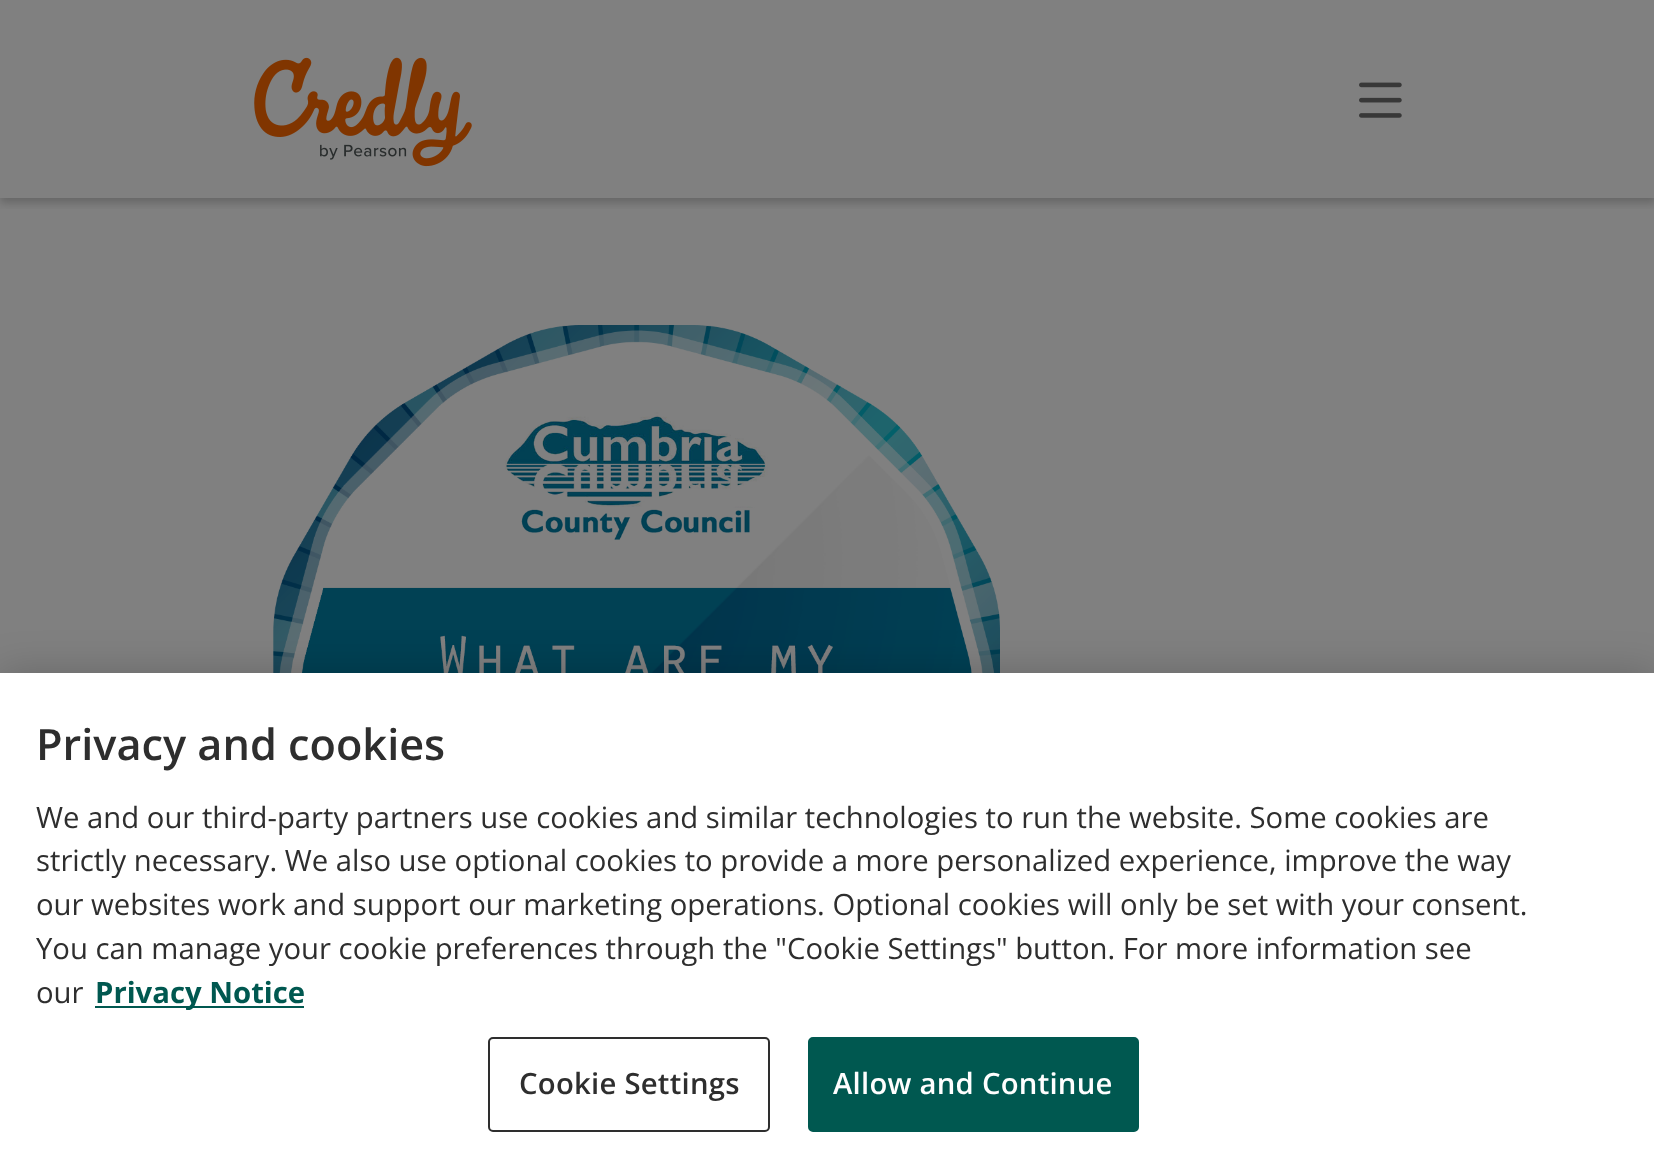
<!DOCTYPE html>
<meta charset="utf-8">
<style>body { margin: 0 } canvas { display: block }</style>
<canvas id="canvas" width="1654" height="1166"></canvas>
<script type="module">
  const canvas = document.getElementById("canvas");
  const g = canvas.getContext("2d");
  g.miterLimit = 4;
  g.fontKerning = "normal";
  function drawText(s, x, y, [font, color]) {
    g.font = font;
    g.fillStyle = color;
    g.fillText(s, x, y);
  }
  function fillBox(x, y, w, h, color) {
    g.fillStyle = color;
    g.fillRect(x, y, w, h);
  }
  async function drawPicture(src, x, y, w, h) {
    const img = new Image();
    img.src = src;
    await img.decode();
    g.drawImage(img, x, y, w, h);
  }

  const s1 = ["600 43.25px Open Sans", "#2E2E2E"];
  const s2 = ["29.27px Open Sans", "#2E2E2E"];
  const s3 = ["bold 29.27px Open Sans", "#005850"];
  const s4 = ["600 29.27px Open Sans", "#2E2E2E"];
  const s5 = ["600 29.27px Open Sans", "#FEFEFE"];

  fillBox(0, 0, 1654, 1166, "#808080");
  g.save();
  g.beginPath();
  g.rect(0, 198, 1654, 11);
  g.clip();
  g.fillStyle = "rgba(0, 0, 0, 0.2)";
  g.filter = "blur(4.5px)";
  g.beginPath();
  g.rect(0, 5, 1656, 198);
  g.fill();
  g.filter = "none";
  g.restore();
  await drawPicture("pic1.png", 254, 57, 218, 110);
  await drawPicture("pic2.png", 1359, 82, 43, 36);
  await drawPicture("pic3.png", 273, 325, 727, 348);
  g.fillStyle = "rgba(0, 0, 0, 0.2)";
  g.filter = "blur(20px)";
  g.beginPath();
  g.rect(0, 673, 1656, 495);
  g.fill();
  g.filter = "none";
  fillBox(0, 673, 1654, 493, "#FFFFFF");
  drawText("Privacy and cookies", 36, 760, s1);
  drawText("We and our third-party partners use cookies and similar technologies to run the website. Some cookies are", 36, 828, s2);
  drawText("strictly necessary. We also use optional cookies to provide a more personalized experience, improve the way", 36, 871, s2);
  drawText("our websites work and support our marketing operations. Optional cookies will only be set with your consent.", 36, 915, s2);
  drawText("You can manage your cookie preferences through the \"Cookie Settings\" button. For more information see", 36, 959, s2);
  drawText("our", 36, 1003, s2);
  fillBox(95, 1006, 209, 2, "#005850");
  drawText("Privacy Notice", 95, 1003, s3);
  g.beginPath();
  g.roundRect(489, 1038, 280, 93, 4);
  g.strokeStyle = "#2E2E2E";
  g.lineWidth = 2;
  g.stroke();
  g.letterSpacing = "0.25px";
  drawText("Cookie Settings", 519, 1094, s4);
  g.fillStyle = "#005850";
  g.beginPath();
  g.roundRect(809, 1038, 329, 93, 4);
  g.fill();
  g.strokeStyle = "#005850";
  g.stroke();
  drawText("Allow and Continue", 833, 1094, s5);
</script>
